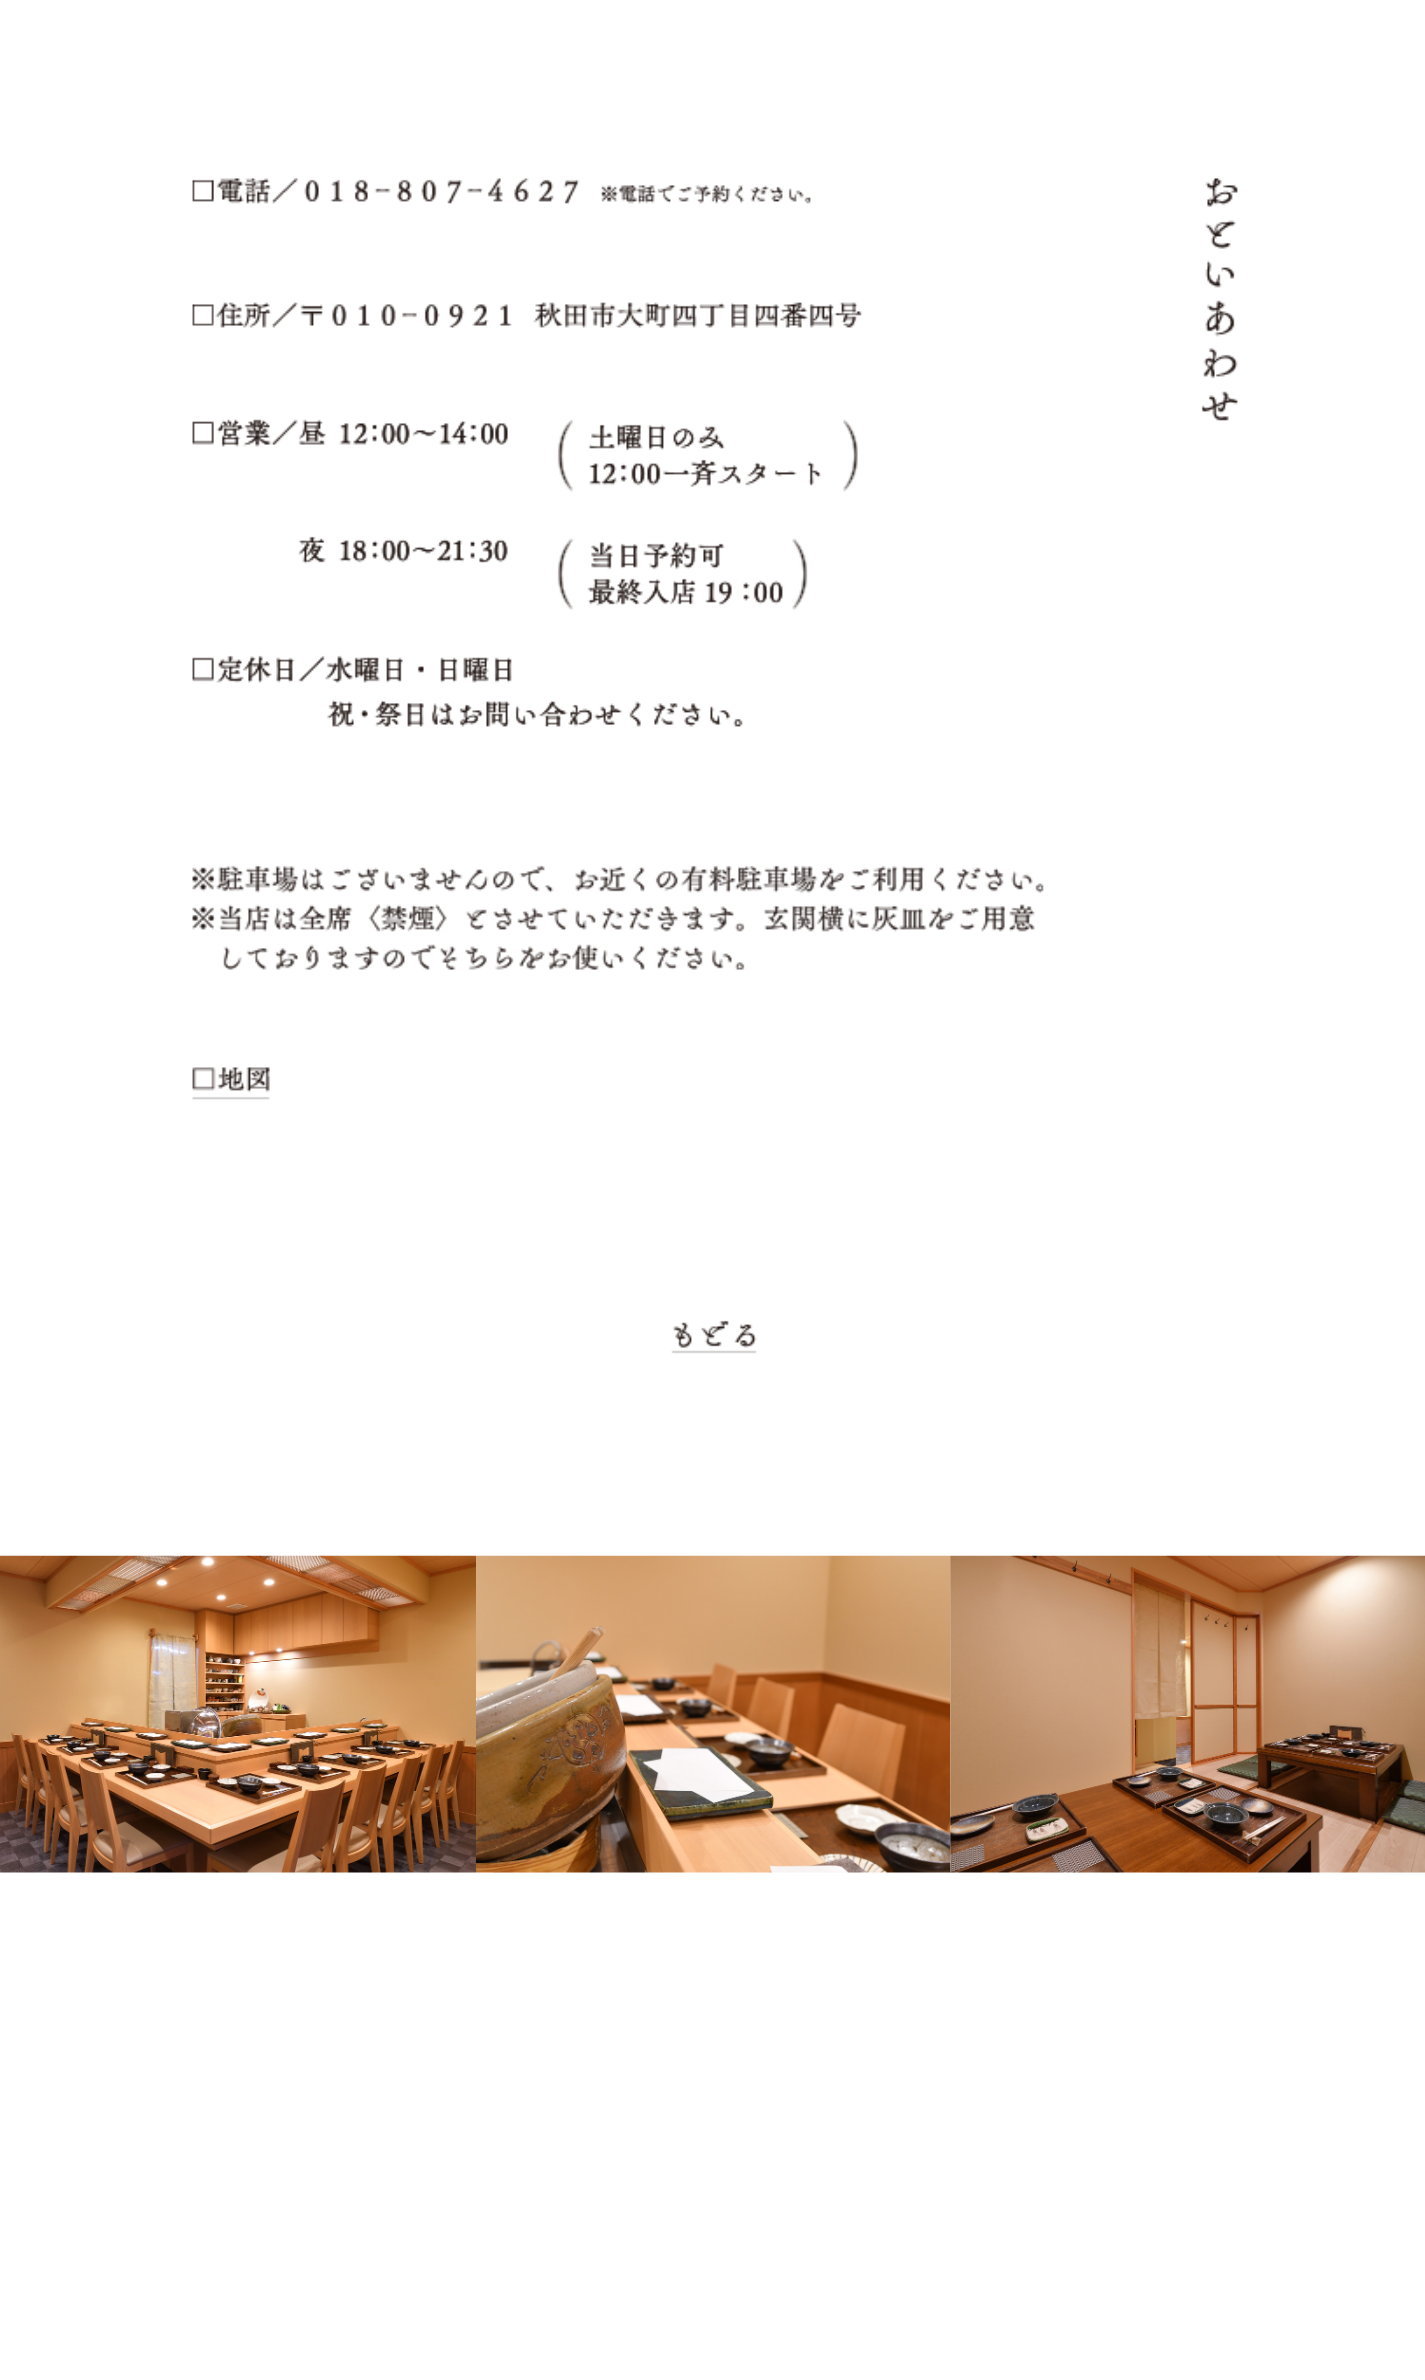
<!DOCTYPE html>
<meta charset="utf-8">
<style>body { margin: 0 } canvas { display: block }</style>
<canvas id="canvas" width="1425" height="2380"></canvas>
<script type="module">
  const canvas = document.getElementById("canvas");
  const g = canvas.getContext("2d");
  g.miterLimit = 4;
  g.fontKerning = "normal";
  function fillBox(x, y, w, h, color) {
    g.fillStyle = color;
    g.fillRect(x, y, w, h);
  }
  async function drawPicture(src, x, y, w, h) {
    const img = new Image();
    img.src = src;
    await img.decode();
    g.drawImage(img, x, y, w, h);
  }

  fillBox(0, 0, 1425, 2380, "#FFFFFF");
  await drawPicture("pic1.png", 192, 178, 619, 26);
  await drawPicture("pic2.png", 192, 302, 670, 26);
  await drawPicture("pic3.png", 192, 419, 666, 308);
  await drawPicture("pic4.png", 192, 865, 852, 105);
  await drawPicture("pic5.png", 192, 1067, 78, 33);
  await drawPicture("pic6.png", 1201, 178, 37, 243);
  await drawPicture("pic7.png", 671, 1320, 86, 34);
  await drawPicture("pic8.png", 0, 1555, 476, 318);
  await drawPicture("pic9.png", 476, 1555, 475, 318);
  await drawPicture("pic10.png", 950, 1555, 475, 318);
</script>
